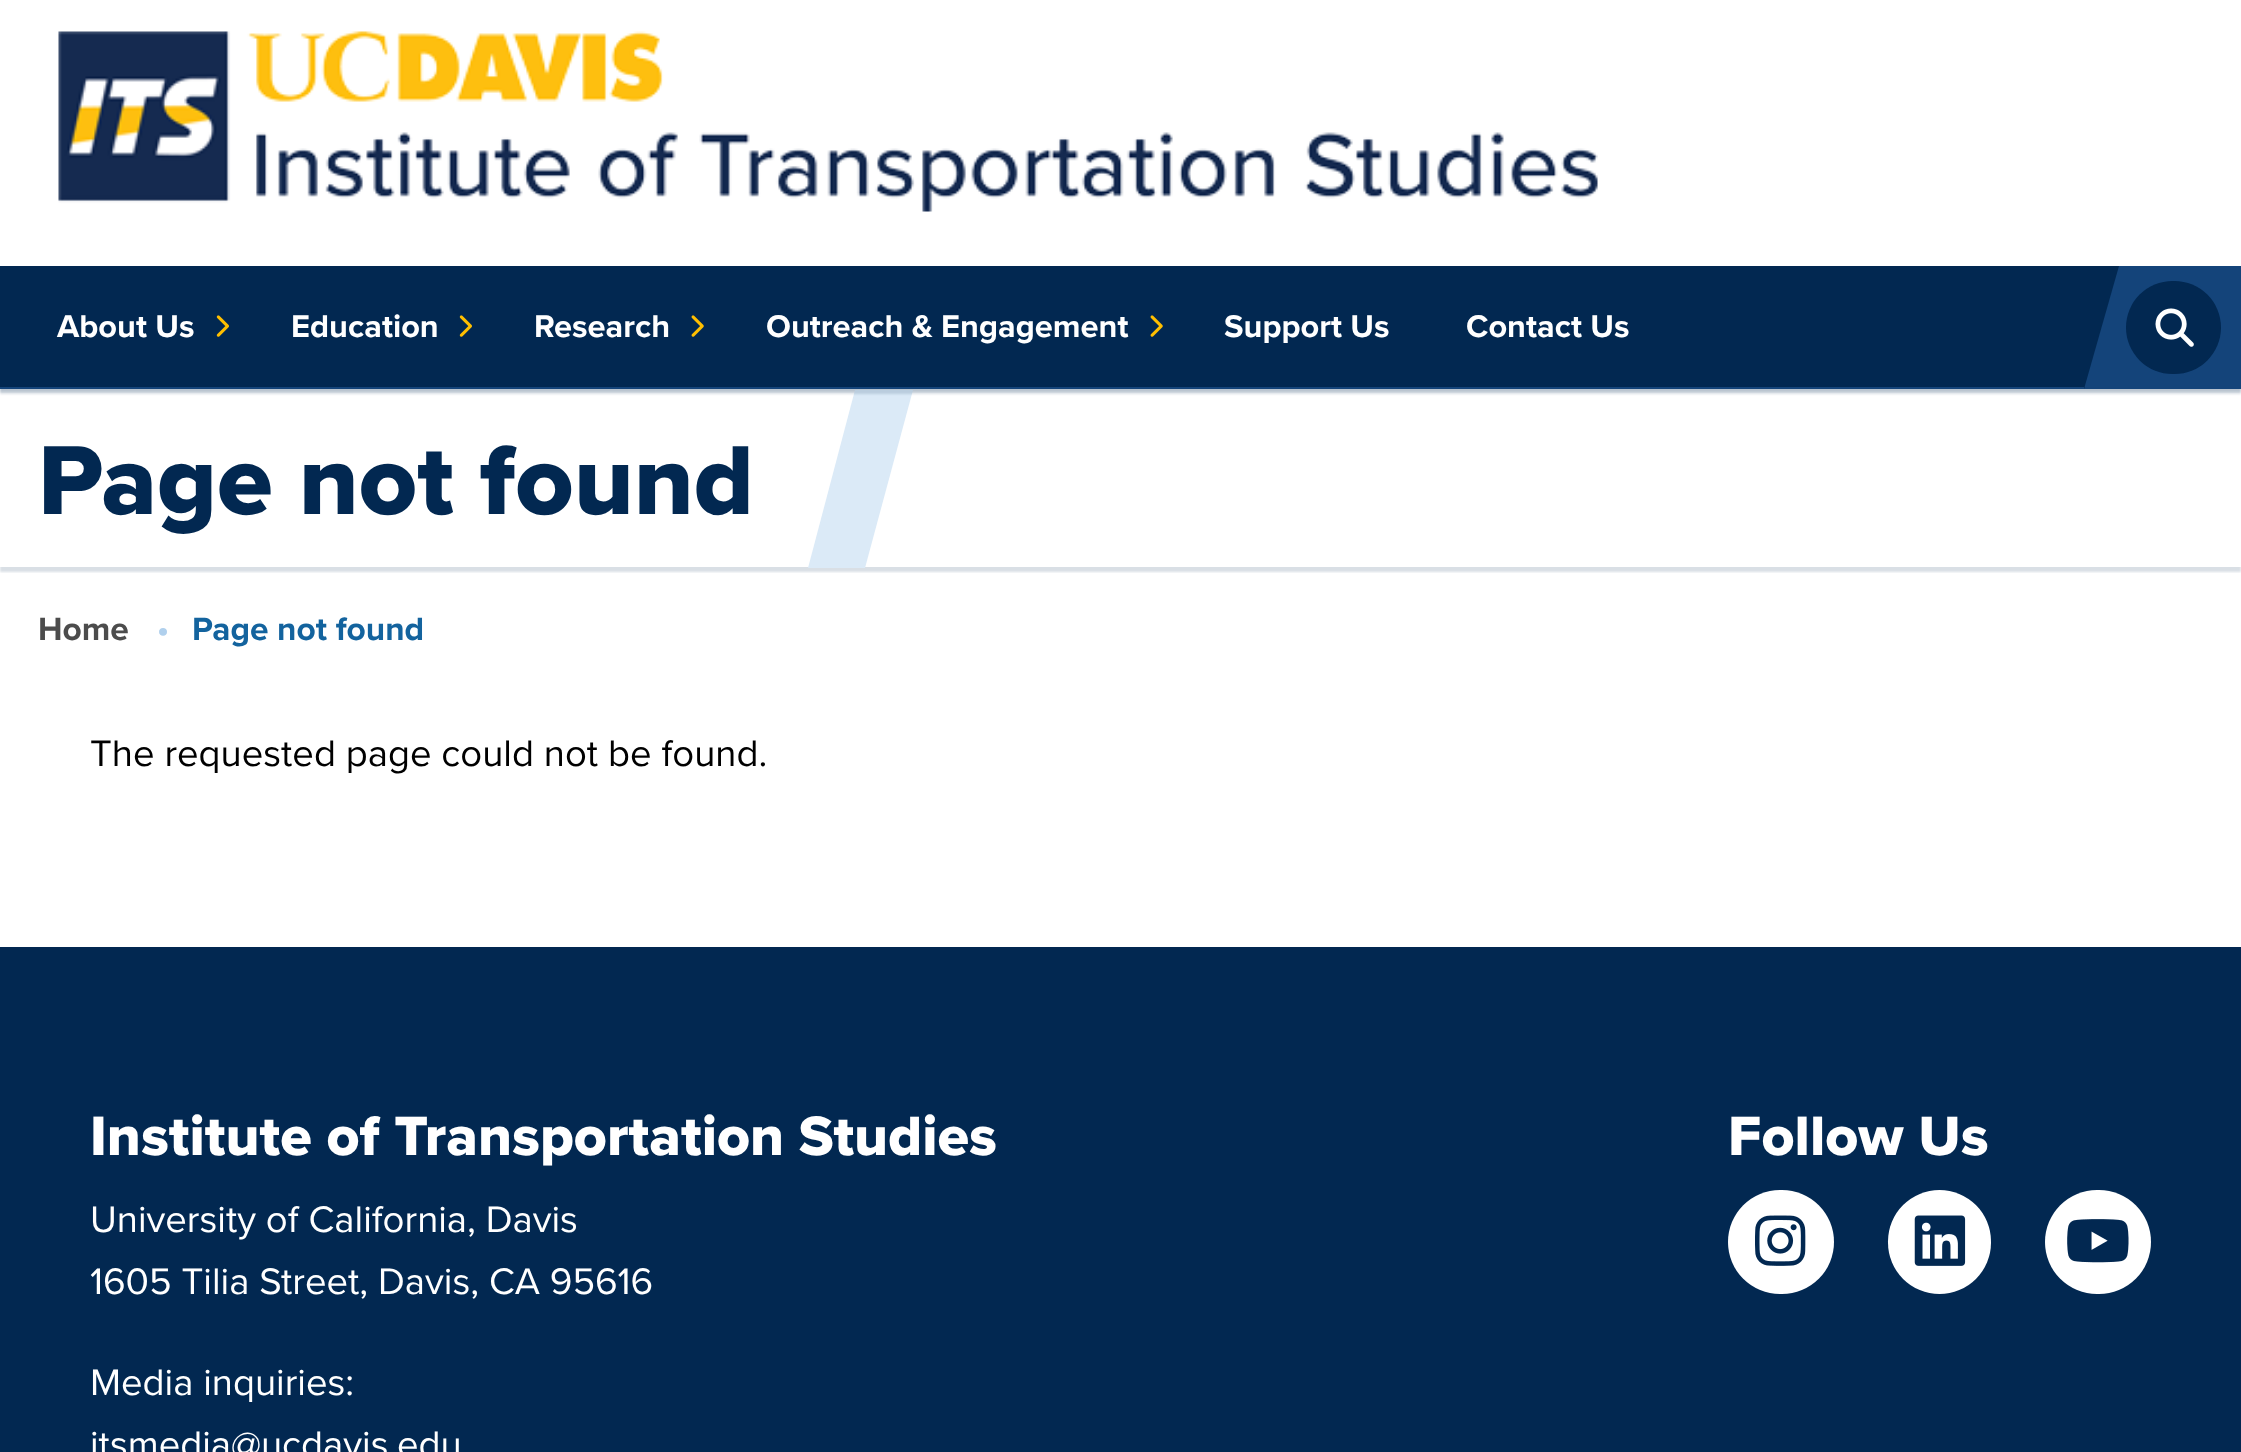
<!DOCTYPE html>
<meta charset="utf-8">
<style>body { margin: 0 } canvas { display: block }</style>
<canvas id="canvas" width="2241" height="1452"></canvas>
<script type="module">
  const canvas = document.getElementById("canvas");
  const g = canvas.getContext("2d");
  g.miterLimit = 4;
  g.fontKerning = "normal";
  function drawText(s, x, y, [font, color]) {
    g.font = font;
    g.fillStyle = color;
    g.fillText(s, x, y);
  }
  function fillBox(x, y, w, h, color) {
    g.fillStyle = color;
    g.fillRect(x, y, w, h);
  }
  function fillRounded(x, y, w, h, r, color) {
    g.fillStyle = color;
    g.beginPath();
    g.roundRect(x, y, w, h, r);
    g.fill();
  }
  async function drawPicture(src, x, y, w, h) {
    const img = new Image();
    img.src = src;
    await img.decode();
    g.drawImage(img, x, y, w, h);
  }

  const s1 = ["bold 32.6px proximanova", "#FFFFFF"];
  const s2 = ["800 101.5px Proxima Nova", "#022851"];
  const s3 = ["bold 33.5px proximanova", "#4C4C4C"];
  const s4 = ["bold 33.5px proximanova", "#B0D0ED"];
  const s5 = ["bold 33.5px proximanova", "#13639E"];
  const s6 = ["38.3px proximanova", "#000000"];
  const s7 = ["800 57.5px Proxima Nova", "#FFFFFF"];
  const s8 = ["38.3px proximanova", "#FFFFFF"];

  fillBox(0, 0, 2241, 1452, "#FFFFFF");
  g.save();
  g.beginPath();
  g.rect(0, 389, 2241, 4);
  g.clip();
  g.fillStyle = "rgba(2, 40, 81, 0.15)";
  g.filter = "blur(1px)";
  g.beginPath();
  g.rect(0, -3, 2241, 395);
  g.fill();
  g.filter = "none";
  g.restore();
  await drawPicture("pic1.png", 58, 31, 1540, 181);
  g.save();
  g.beginPath();
  g.rect(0, 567, 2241, 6);
  g.clip();
  g.fillStyle = "rgba(2, 40, 81, 0.15)";
  g.filter = "blur(1px)";
  g.beginPath();
  g.rect(0, 394, 2241, 178);
  g.fill();
  g.filter = "none";
  g.restore();
  g.fillStyle = "#DBEAF7";
  g.beginPath();
  g.moveTo(855, 390);
  g.lineTo(913, 390);
  g.lineTo(865, 568);
  g.lineTo(808, 568);
  g.closePath();
  g.fill();
  g.fillStyle = "rgba(2, 40, 81, 0.15)";
  g.filter = "blur(1px)";
  g.beginPath();
  g.rect(0, 270, 2241, 124);
  g.fill();
  g.filter = "none";
  fillBox(0, 266, 2119, 123, "#022851");
  fillBox(0, 387, 2084, 2, "#14447A");
  drawText("About Us", 57, 337, s1);
  await drawPicture("pic2.png", 216, 315, 13, 22);
  drawText("Education", 291, 337, s1);
  await drawPicture("pic2.png", 459, 315, 13, 22);
  drawText("Research", 534, 337, s1);
  await drawPicture("pic3.png", 691, 315, 13, 22);
  drawText("Outreach & Engagement", 766, 337, s1);
  await drawPicture("pic3.png", 1150, 315, 13, 22);
  drawText("Support Us", 1224, 337, s1);
  drawText("Contact Us", 1466, 337, s1);
  fillBox(2122, 266, 119, 123, "#14447A");
  g.beginPath();
  g.moveTo(2084, 389);
  g.lineTo(2119, 266);
  g.lineTo(2122, 266);
  g.lineTo(2122, 389);
  g.closePath();
  g.fill();
  fillRounded(2126, 281, 95, 93, 46.5, "#022851");
  await drawPicture("pic4.png", 2155, 308, 39, 39);
  drawText("Page not found", 38, 514, s2);
  drawText("Home", 38, 640, s3);
  drawText("•", 157, 640, s4);
  drawText("Page not found", 192, 640, s5);
  drawText("The requested page could not be found.", 90, 766, s6);
  fillBox(0, 947, 2241, 505, "#022851");
  drawText("Institute of Transportation Studies", 90, 1155, s7);
  drawText("University of California, Davis", 90, 1232, s8);
  drawText("1605 Tilia Street, Davis, CA 95616", 90, 1294, s8);
  drawText("Media inquiries:", 90, 1395, s8);
  drawText("itsmedia@ucdavis.edu", 90, 1457, s8);
  drawText("Follow Us", 1728, 1155, s7);
  fillRounded(1728, 1190, 106, 104, 52, "#FFFFFF");
  await drawPicture("pic5.png", 1755, 1215, 51, 51);
  fillRounded(1888, 1190, 103, 104, 51.5, "#FFFFFF");
  await drawPicture("pic6.png", 1914, 1215, 52, 51);
  fillRounded(2045, 1190, 106, 104, 52, "#FFFFFF");
  await drawPicture("pic7.png", 2067, 1219, 62, 44);
</script>
